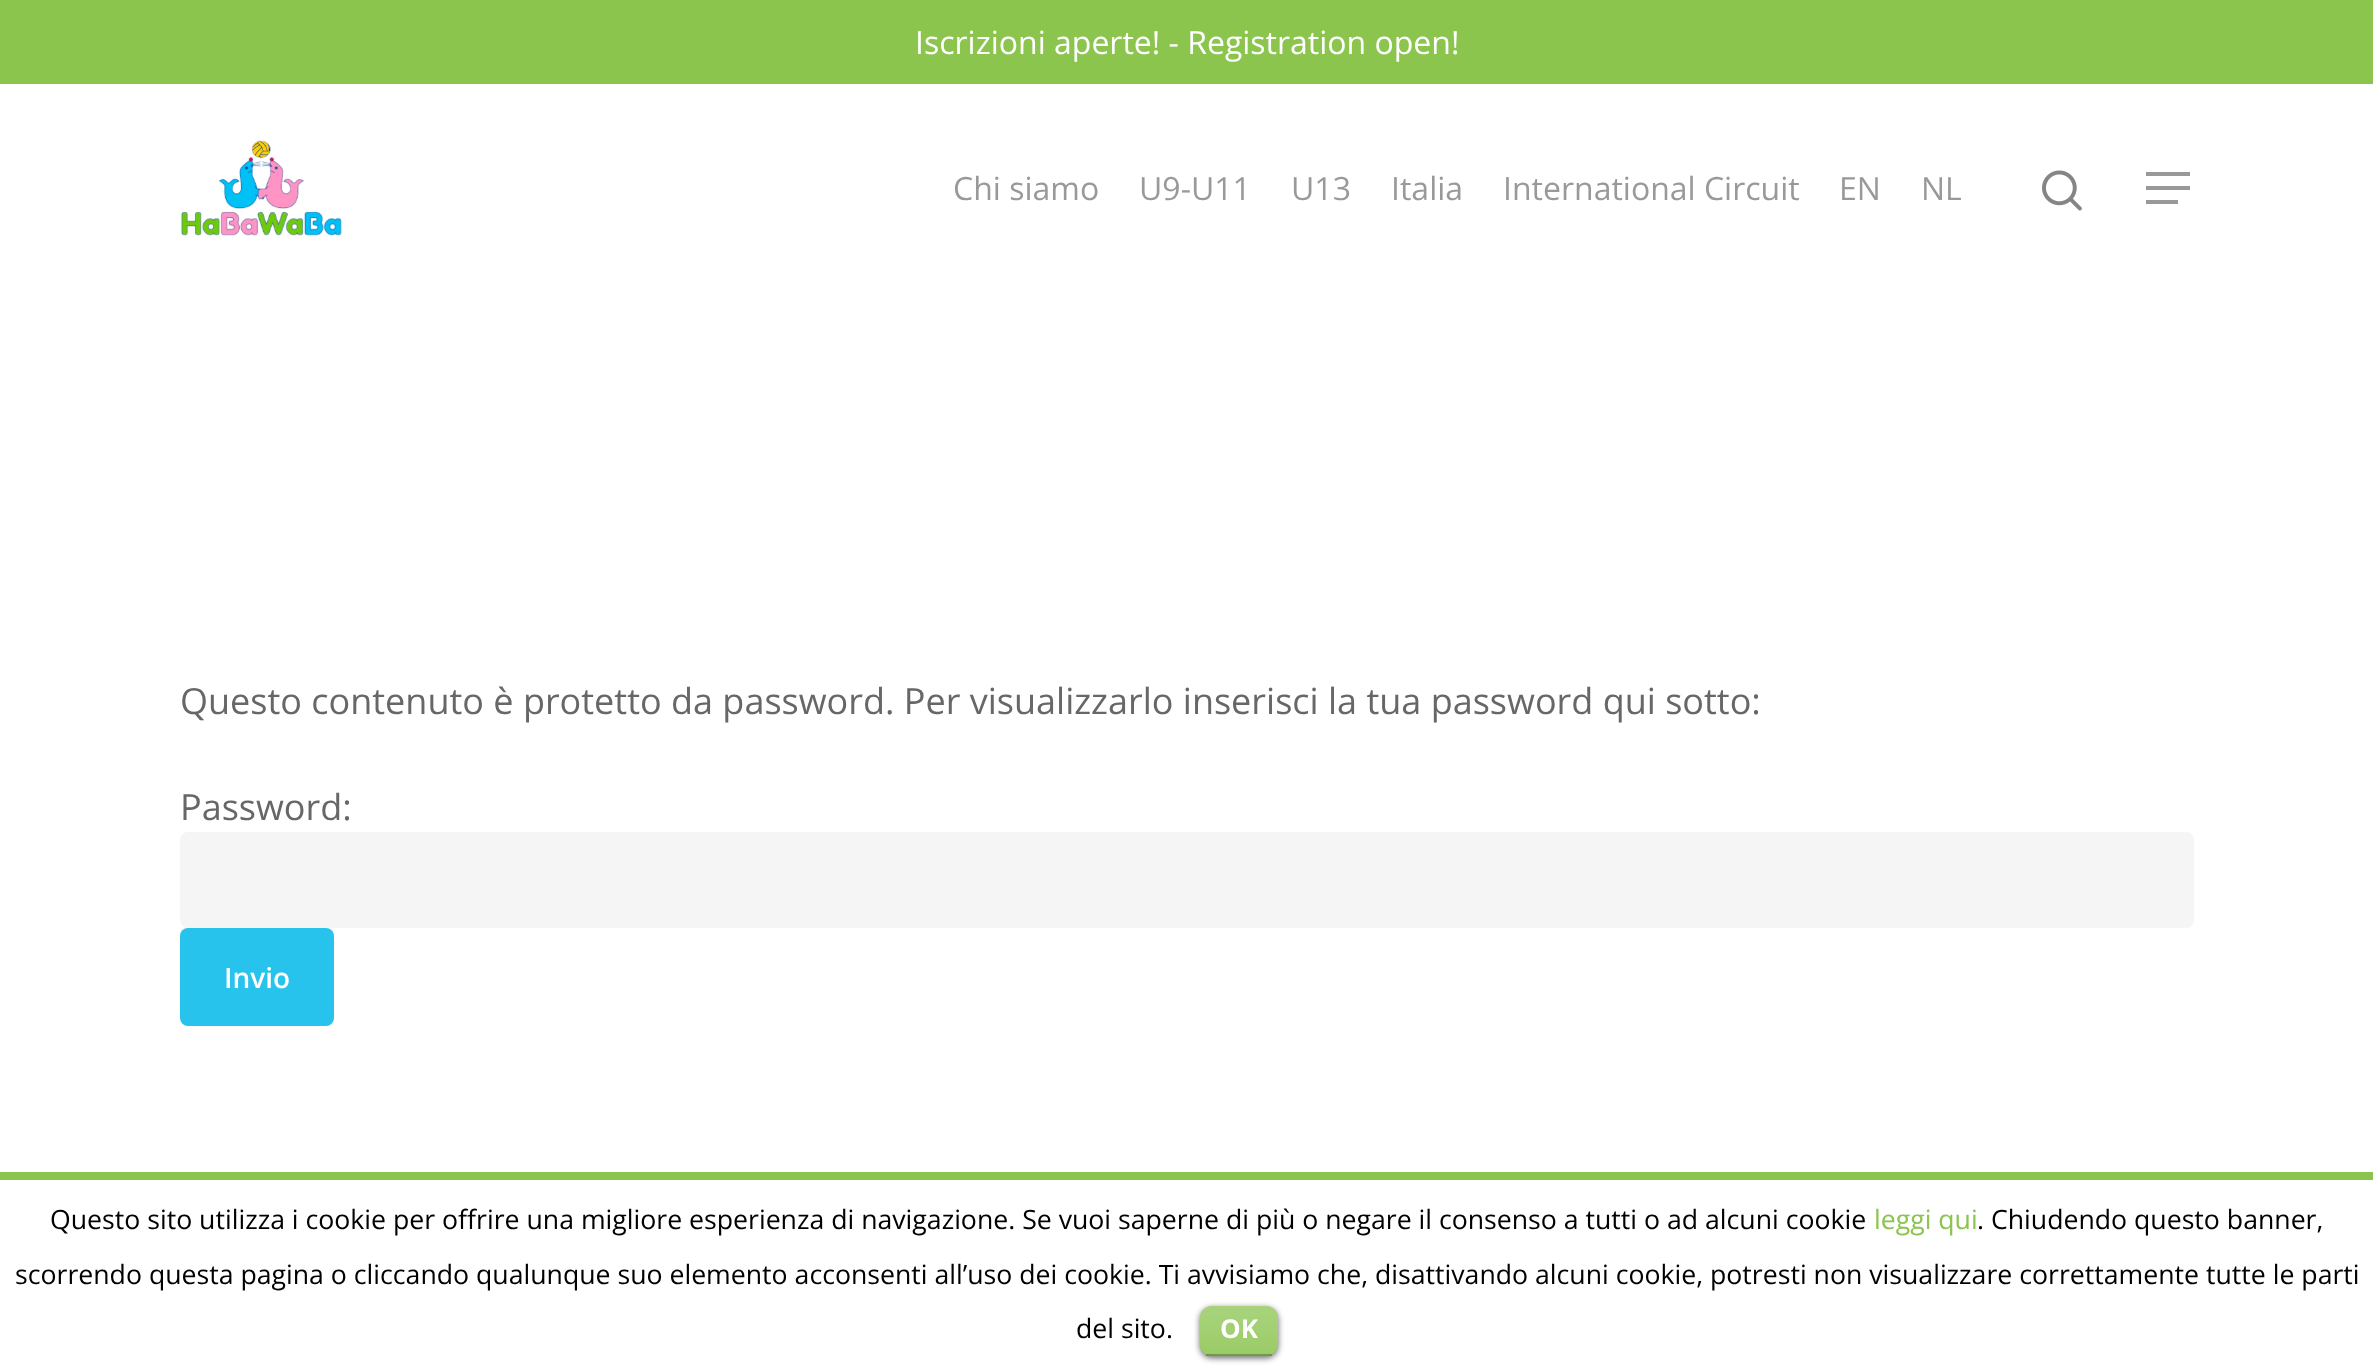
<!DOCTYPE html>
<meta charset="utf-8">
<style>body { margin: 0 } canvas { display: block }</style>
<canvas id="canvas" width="2373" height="1366"></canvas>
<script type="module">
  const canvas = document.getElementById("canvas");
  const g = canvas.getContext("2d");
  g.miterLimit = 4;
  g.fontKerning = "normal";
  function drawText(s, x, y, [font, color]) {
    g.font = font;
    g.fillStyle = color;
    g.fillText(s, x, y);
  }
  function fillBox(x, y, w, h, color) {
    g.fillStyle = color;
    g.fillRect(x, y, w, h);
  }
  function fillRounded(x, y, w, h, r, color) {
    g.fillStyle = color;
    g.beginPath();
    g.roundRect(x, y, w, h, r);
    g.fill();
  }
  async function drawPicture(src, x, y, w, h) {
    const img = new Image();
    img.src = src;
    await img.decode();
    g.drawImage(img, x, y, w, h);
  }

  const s1 = ["32px Open Sans", "#FFFFFF"];
  const s2 = ["32px Open Sans", "#999999"];
  const s3 = ["36px Open Sans", "#676767"];
  const s4 = ["600 28px Open Sans", "#FFFFFF"];
  const s5 = ["26.67px Open Sans", "#000000"];
  const s6 = ["26.67px Open Sans", "#8BC44F"];
  const s7 = ["bold 26px Open Sans", "#FFFFFF"];

  fillBox(0, 0, 2373, 1366, "#FFFFFF");
  fillBox(0, 0, 2373, 84, "#8CC54E");
  drawText("Iscrizioni aperte! - Registration open!", 915, 54, s1);
  await drawPicture("pic1.png", 181, 140, 161, 96);
  drawText("Chi siamo", 953, 200, s2);
  drawText("U9-U11", 1139, 200, s2);
  drawText("U13", 1291, 200, s2);
  drawText("Italia", 1391, 200, s2);
  drawText("International Circuit", 1503, 200, s2);
  drawText("EN", 1839, 200, s2);
  drawText("NL", 1921, 200, s2);
  await drawPicture("pic2.png", 2042, 170, 40, 41);
  fillBox(2146, 172, 44, 4, "#999999");
  fillBox(2146, 200, 32, 4, "#999999");
  fillBox(2146, 186, 44, 4, "#999999");
  drawText("Questo contenuto è protetto da password. Per visualizzarlo inserisci la tua password qui sotto:", 180, 714, s3);
  drawText("Password:", 180, 820, s3);
  fillRounded(180, 832, 2014, 96, 8, "#F5F5F5");
  fillRounded(180, 928, 154, 98, 8, "#28C3EC");
  drawText("Invio", 224, 988, s4);
  fillBox(0, 1172, 2373, 8, "#8BC44F");
  drawText("Questo sito utilizza i cookie per offrire una migliore esperienza di navigazione. Se vuoi saperne di più o negare il consenso a tutti o ad alcuni cookie", 50, 1229, s5);
  drawText("leggi qui", 1874, 1229, s6);
  drawText(". Chiudendo questo banner,", 1977, 1229, s5);
  drawText("scorrendo questa pagina o cliccando qualunque suo elemento acconsenti all’uso dei cookie. Ti avvisiamo che, disattivando alcuni cookie, potresti non visualizzare correttamente tutte le parti", 15, 1284, s5);
  drawText("del sito.", 1076, 1338, s5);
  g.fillStyle = "rgba(0, 0, 0, 0.6)";
  g.filter = "blur(3px)";
  g.beginPath();
  g.roundRect(1200, 1308, 78, 50, 12);
  g.fill();
  g.filter = "none";
  fillRounded(1200, 1306, 78, 50, 12, "#8BC44F");
  await drawPicture("pic3.png", 1200, 1306, 78, 50);
  fillBox(1206, 1354, 66, 2, "rgba(0, 0, 0, 0.25)");
  drawText("OK", 1220, 1338, s7);
</script>
